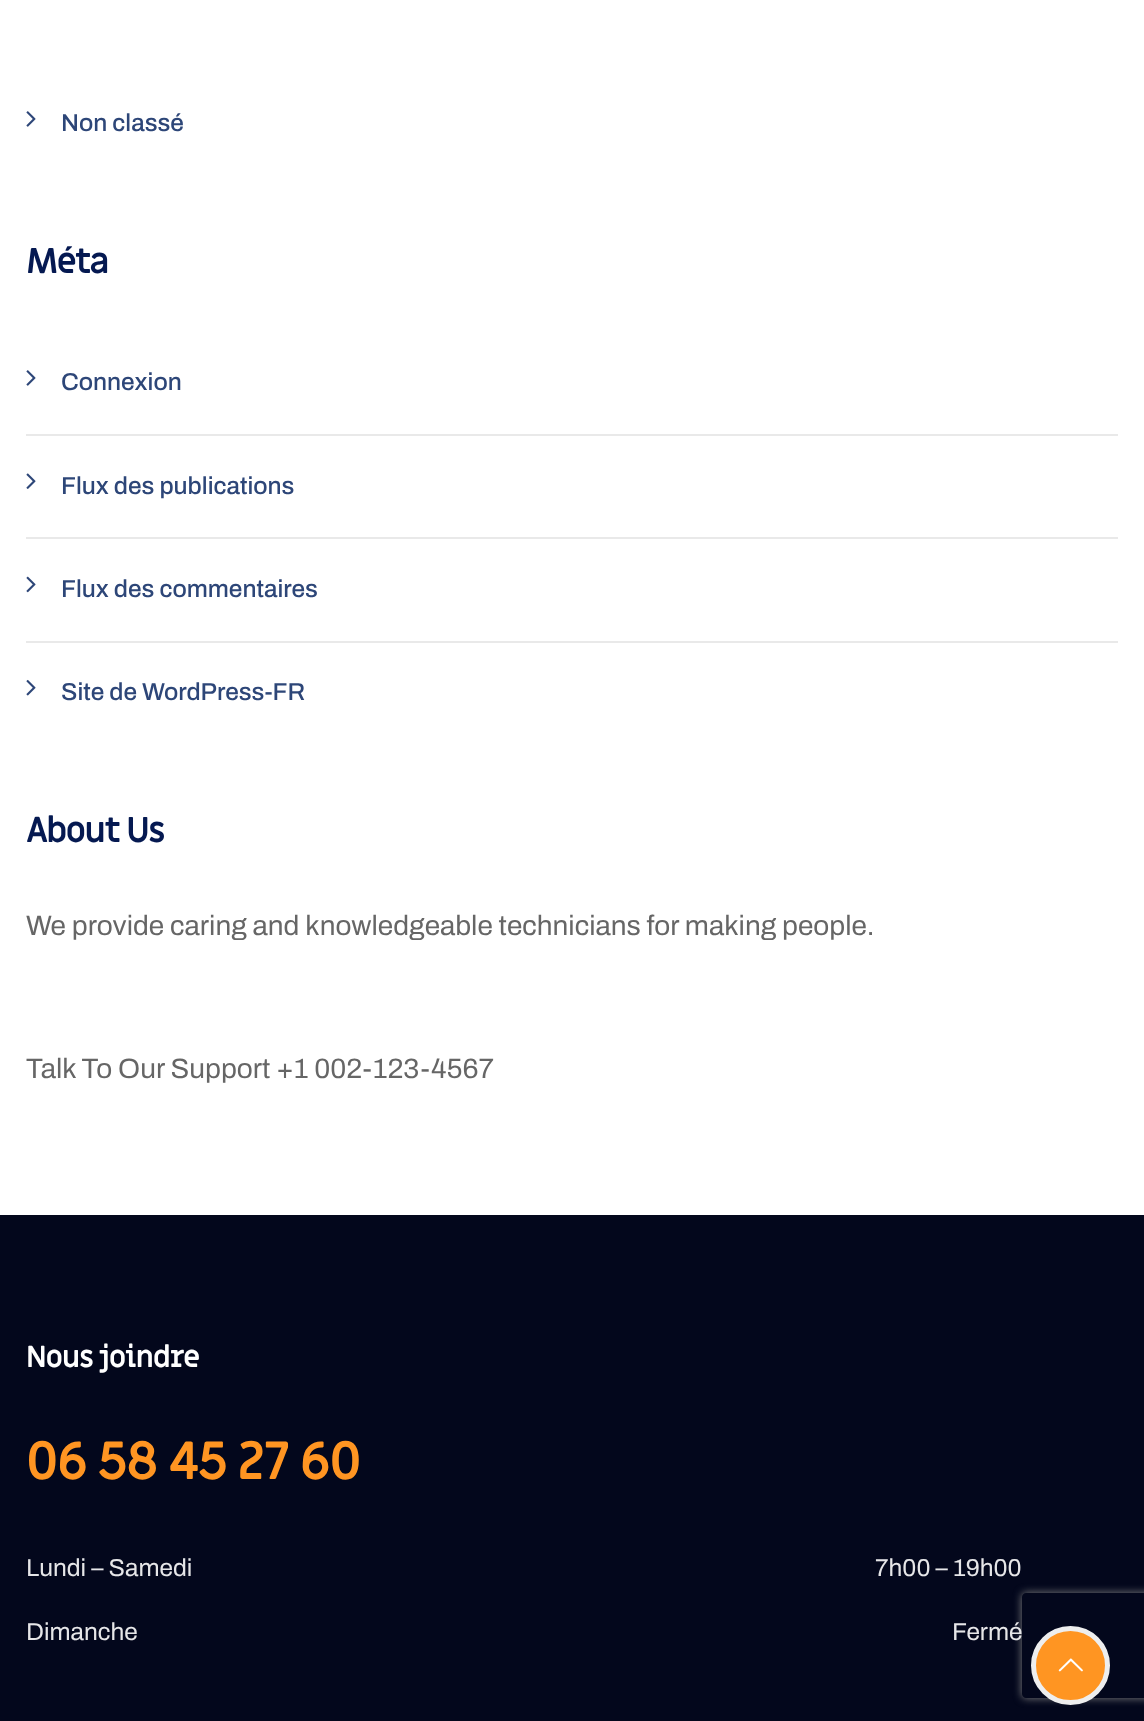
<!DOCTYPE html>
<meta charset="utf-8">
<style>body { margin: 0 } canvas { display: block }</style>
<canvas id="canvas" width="1144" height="1721"></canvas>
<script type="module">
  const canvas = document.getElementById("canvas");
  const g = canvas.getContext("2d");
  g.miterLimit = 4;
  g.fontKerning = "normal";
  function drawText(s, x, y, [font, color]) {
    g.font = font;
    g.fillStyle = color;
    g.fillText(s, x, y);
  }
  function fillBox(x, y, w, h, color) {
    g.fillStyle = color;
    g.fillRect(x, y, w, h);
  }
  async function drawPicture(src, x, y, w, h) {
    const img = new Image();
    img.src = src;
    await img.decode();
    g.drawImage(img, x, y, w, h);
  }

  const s1 = ["500 24.5px Archivo", "#2D4678"];
  const s2 = ["bold 35px Miriam Libre", "#051951"];
  const s3 = ["28px Archivo", "#666666"];
  const s4 = ["bold 29.75px Miriam Libre", "#FFFFFF"];
  const s5 = ["bold 52.5px Miriam Libre", "#FF9522"];
  const s6 = ["24.5px Archivo", "#E6E6E8"];

  fillBox(0, 0, 1144, 1721, "#FFFFFF");
  await drawPicture("pic1.png", 26, 111, 10, 16);
  drawText("Non classé", 61, 131, s1);
  g.letterSpacing = "-2px";
  drawText("Méta", 26, 273, s2);
  await drawPicture("pic1.png", 26, 370, 10, 16);
  g.letterSpacing = "0px";
  drawText("Connexion", 61, 390, s1);
  fillBox(26, 434, 1092, 2, "#E9E9E9");
  await drawPicture("pic2.png", 26, 473, 10, 16);
  drawText("Flux des publications", 61, 494, s1);
  fillBox(26, 537, 1092, 2, "#E9E9E9");
  await drawPicture("pic3.png", 26, 576, 10, 17);
  drawText("Flux des commentaires", 61, 597, s1);
  fillBox(26, 641, 1092, 2, "#E9E9E9");
  await drawPicture("pic4.png", 26, 679, 10, 17);
  drawText("Site de WordPress-FR", 61, 700, s1);
  g.letterSpacing = "-2px";
  drawText("About Us", 26, 842, s2);
  g.letterSpacing = "0px";
  drawText("We provide caring and knowledgeable technicians for making people.", 26, 935, s3);
  drawText("Talk To Our Support +1 002-123-4567", 26, 1078, s3);
  fillBox(0, 1215, 1144, 506, "#03071C");
  g.letterSpacing = "-1.25px";
  drawText("Nous joindre", 26, 1367, s4);
  g.letterSpacing = "-1.75px";
  drawText("06 58 45 27 60", 26, 1479, s5);
  g.letterSpacing = "0px";
  drawText("Lundi – Samedi", 26, 1576, s6);
  drawText("7h00 – 19h00", 875, 1576, s6);
  drawText("Dimanche", 26, 1640, s6);
  g.save();
  g.beginPath();
  g.moveTo(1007, 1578);
  g.lineTo(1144, 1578);
  g.lineTo(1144, 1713);
  g.lineTo(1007, 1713);
  g.closePath();
  g.moveTo(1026, 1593);
  g.lineTo(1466, 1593);
  g.bezierCurveTo(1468, 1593, 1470, 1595, 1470, 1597);
  g.lineTo(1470, 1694);
  g.bezierCurveTo(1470, 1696, 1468, 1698, 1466, 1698);
  g.lineTo(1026, 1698);
  g.bezierCurveTo(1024, 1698, 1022, 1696, 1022, 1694);
  g.lineTo(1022, 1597);
  g.bezierCurveTo(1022, 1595, 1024, 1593, 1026, 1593);
  g.closePath();
  g.clip("evenodd");
  g.fillStyle = "#808080";
  g.filter = "blur(4.5px)";
  g.beginPath();
  g.roundRect(1022, 1593, 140, 105, 4);
  g.fill();
  g.filter = "none";
  g.restore();
  drawText("Fermé", 952, 1640, s6);
  g.fillStyle = "#FF9522";
  g.beginPath();
  g.arc(1070.5, 1665.5, 37, 0, Math.PI * 2);
  g.fill();
  g.strokeStyle = "#EEEEEE";
  g.lineWidth = 5;
  g.stroke();
  await drawPicture("pic5.png", 1058, 1658, 25, 14);
</script>
